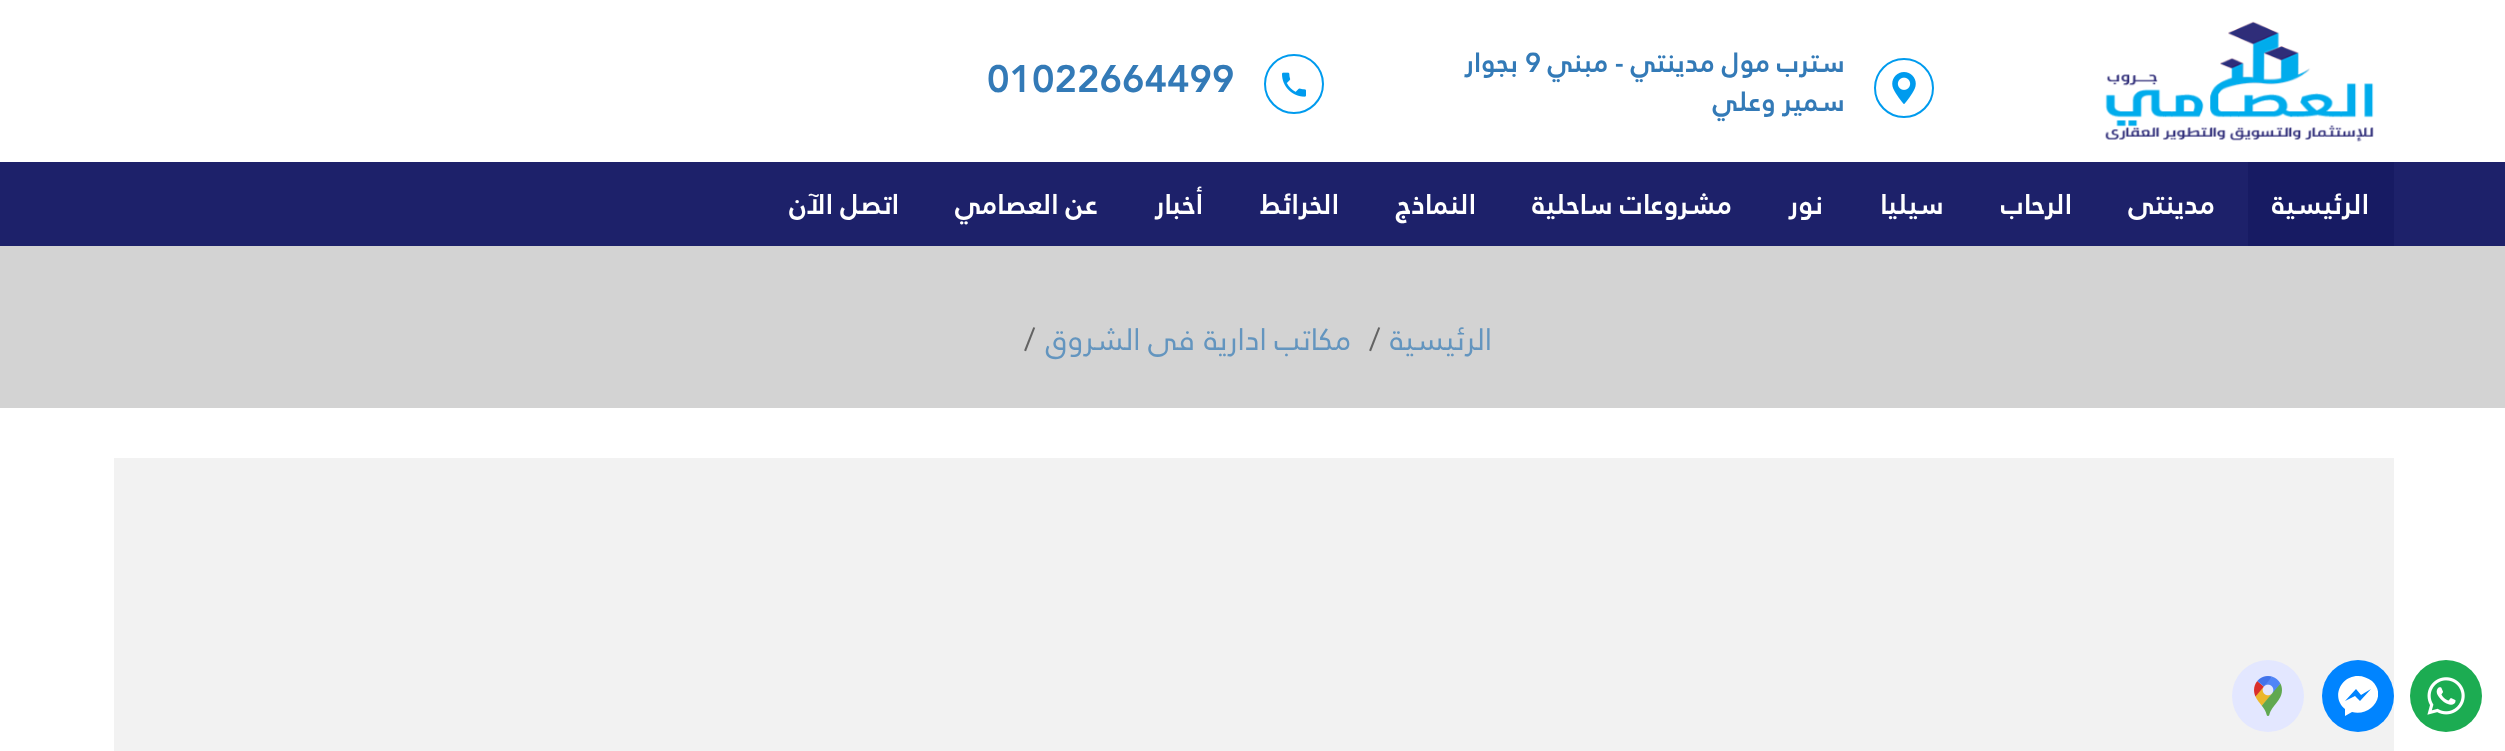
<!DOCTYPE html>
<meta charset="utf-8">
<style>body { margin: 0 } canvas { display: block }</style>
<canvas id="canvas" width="2505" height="751"></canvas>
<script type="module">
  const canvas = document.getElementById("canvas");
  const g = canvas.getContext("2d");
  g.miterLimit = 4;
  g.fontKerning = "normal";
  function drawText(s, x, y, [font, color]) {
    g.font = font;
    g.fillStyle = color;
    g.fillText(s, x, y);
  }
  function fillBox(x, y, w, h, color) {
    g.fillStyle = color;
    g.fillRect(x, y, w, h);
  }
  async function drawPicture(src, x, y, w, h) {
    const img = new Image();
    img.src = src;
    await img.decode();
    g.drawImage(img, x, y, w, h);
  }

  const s1 = ["bold 27.25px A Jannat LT", "#337AB7"];
  const s2 = ["bold 38px A Jannat LT", "#337AB7"];
  const s3 = ["bold 28px A Jannat LT", "#FFFFFF"];
  const s4 = ["30.5px A Jannat LT", "#6395BF"];
  const s5 = ["30.5px A Jannat LT", "#636363"];

  fillBox(0, 0, 2505, 751, "#FFFFFF");
  await drawPicture("pic1.png", 2105, 21, 269, 121);
  g.beginPath();
  g.arc(1904, 88, 29, 0, Math.PI * 2);
  g.strokeStyle = "#009BEE";
  g.lineWidth = 2;
  g.stroke();
  await drawPicture("pic2.png", 1892, 72, 24, 32);
  g.direction = "rtl";
  drawText("سترب مول مدينتي - مبني", 1845, 72, s1);
  g.direction = "ltr";
  drawText("9", 1525, 72, s1);
  g.direction = "rtl";
  drawText("بجوار", 1518, 72, s1);
  drawText("سمير وعلي", 1845, 111, s1);
  g.beginPath();
  g.arc(1294, 84, 29, 0, Math.PI * 2);
  g.stroke();
  await drawPicture("pic3.png", 1282, 72, 24, 25);
  g.direction = "ltr";
  drawText("01022664499", 987, 92, s2);
  fillBox(0, 162, 2505, 84, "#1D216A");
  fillBox(2248, 162, 146, 84, "#171B63");
  g.direction = "rtl";
  drawText("الرئيسية", 2369, 214, s3);
  drawText("مدينتى", 2215, 214, s3);
  drawText("الرحاب", 2072, 214, s3);
  drawText("سيليا", 1944, 214, s3);
  drawText("نور", 1823, 214, s3);
  drawText("مشروعات ساحلية", 1732, 214, s3);
  drawText("النماذج", 1476, 214, s3);
  drawText("الخرائط", 1339, 214, s3);
  drawText("أخبار", 1203, 214, s3);
  drawText("عن العصامي", 1098, 214, s3);
  drawText("اتصل الآن", 899, 214, s3);
  fillBox(0, 246, 2505, 162, "#D3D3D3");
  drawText("الرئيسية", 1492, 350, s4);
  g.direction = "ltr";
  drawText("/", 1369, 350, s5);
  g.direction = "rtl";
  drawText("مكاتب ادارية", 1351, 350, s4);
  drawText("فى الشروق", 1195, 350, s4);
  g.direction = "ltr";
  drawText("/", 1024, 350, s5);
  fillBox(114, 458, 2280, 293, "#F2F2F2");
  g.fillStyle = "#1CAC52";
  g.beginPath();
  g.arc(2446, 696, 36, 0, Math.PI * 2);
  g.fill();
  await drawPicture("pic4.png", 2427, 677, 38, 38);
  g.fillStyle = "#0084FF";
  g.beginPath();
  g.arc(2358, 696, 36, 0, Math.PI * 2);
  g.fill();
  g.save();
  g.beginPath();
  g.rect(2338, 676, 40, 40);
  g.clip();
  g.fillStyle = "#FFFFFF";
  g.beginPath();
  g.moveTo(2358, 676);
  g.bezierCurveTo(2340, 676, 2331, 698, 2345, 709);
  g.lineTo(2345, 716);
  g.lineTo(2352, 712);
  g.bezierCurveTo(2370, 717, 2388, 696, 2372, 681);
  g.bezierCurveTo(2368, 678, 2363, 676, 2358, 676);
  g.closePath();
  g.moveTo(2360, 701);
  g.lineTo(2355, 696);
  g.lineTo(2345, 701);
  g.lineTo(2356, 689);
  g.lineTo(2361, 695);
  g.lineTo(2371, 689);
  g.closePath();
  g.fill();
  g.restore();
  g.fillStyle = "#E3E7FF";
  g.beginPath();
  g.arc(2268, 696, 36, 0, Math.PI * 2);
  g.fill();
  await drawPicture("pic5.png", 2254, 676, 28, 40);
</script>
